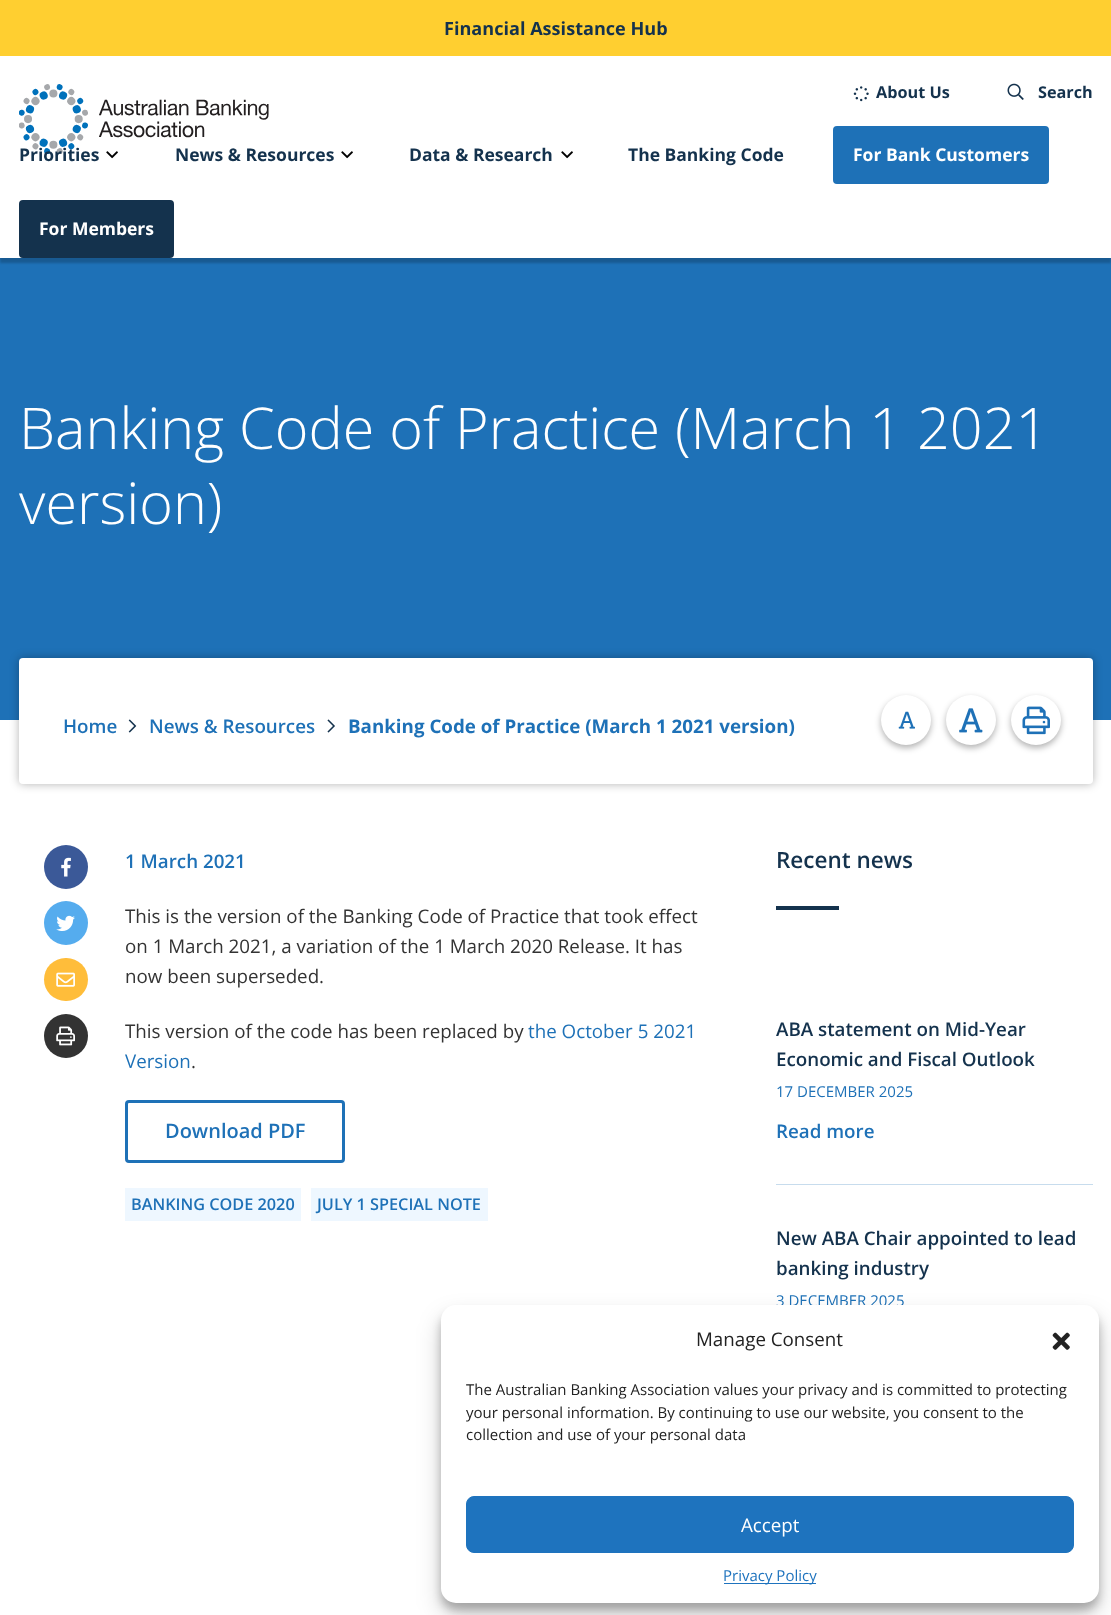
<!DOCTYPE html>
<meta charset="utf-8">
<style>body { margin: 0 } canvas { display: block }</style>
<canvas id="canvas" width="1111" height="1615"></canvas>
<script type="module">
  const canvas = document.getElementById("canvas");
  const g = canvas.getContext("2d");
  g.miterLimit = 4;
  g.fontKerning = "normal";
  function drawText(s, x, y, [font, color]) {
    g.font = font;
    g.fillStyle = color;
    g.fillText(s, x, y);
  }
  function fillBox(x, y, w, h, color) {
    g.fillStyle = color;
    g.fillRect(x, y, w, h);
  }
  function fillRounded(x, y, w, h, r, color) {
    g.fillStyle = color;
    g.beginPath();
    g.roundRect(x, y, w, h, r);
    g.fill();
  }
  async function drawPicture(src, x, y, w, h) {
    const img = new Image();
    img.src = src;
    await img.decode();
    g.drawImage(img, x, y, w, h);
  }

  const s1 = ["bold 18.1px Open Sans", "#14324D"];
  const s2 = ["bold 16.25px Open Sans", "#14324D"];
  const s3 = ["bold 17.5px Open Sans", "#14324D"];
  const s4 = ["bold 17.5px Open Sans", "#FFFFFF"];
  const s5 = ["300 57.5px Open Sans", "#FFFFFF"];
  const s6 = ["600 18.75px Open Sans", "#1E71B7"];
  const s7 = ["bold 18.75px Open Sans", "#1E71B7"];
  const s8 = ["18.75px Open Sans", "#333333"];
  const s9 = ["18.75px Open Sans", "#1E71B7"];
  const s10 = ["600 20px Open Sans", "#1E71B7"];
  const s11 = ["600 16.25px Open Sans", "#1E71B7"];
  const s12 = ["600 22.5px Open Sans", "#14324D"];
  const s13 = ["600 18.75px Open Sans", "#14324D"];
  const s14 = ["15px Open Sans", "#1E71B7"];
  const s15 = ["18.75px Open Sans", "#222222"];
  const s16 = ["15px Open Sans", "#222222"];
  const s17 = ["18.75px Open Sans", "#FFFFFF"];
  const s18 = ["15px Open Sans", "#1E73BE"];

  fillBox(0, 0, 1111, 1615, "#FFFFFF");
  fillBox(0, 0, 1111, 56, "#FFCF30");
  drawText("Financial Assistance Hub", 444, 35, s1);
  fillBox(0, 258, 1111, 462, "#1E71B7");
  g.fillStyle = "rgba(0, 0, 0, 0.2)";
  g.filter = "blur(1px)";
  g.beginPath();
  g.rect(0, 61, 1111, 202);
  g.fill();
  g.filter = "none";
  fillBox(0, 59, 1111, 199, "#FFFFFF");
  await drawPicture("pic1.png", 19, 84, 250, 70);
  await drawPicture("pic2.png", 853, 86, 16, 16);
  drawText("About Us", 876, 98, s2);
  await drawPicture("pic3.png", 1007, 83, 17, 17);
  drawText("Search", 1038, 98, s2);
  drawText("Priorities", 19, 161, s3);
  await drawPicture("pic4.png", 106, 151, 12, 8);
  drawText("News & Resources", 175, 161, s3);
  await drawPicture("pic4.png", 341, 151, 12, 8);
  drawText("Data & Research", 409, 161, s3);
  await drawPicture("pic4.png", 561, 151, 12, 8);
  drawText("The Banking Code", 628, 161, s3);
  g.fillStyle = "#1E71B7";
  g.beginPath();
  g.roundRect(834.5, 127.5, 213, 55, 2.5);
  g.fill();
  g.strokeStyle = "#1E71B7";
  g.lineWidth = 3;
  g.stroke();
  drawText("For Bank Customers", 853, 161, s4);
  g.fillStyle = "#14324D";
  g.beginPath();
  g.roundRect(20.5, 201.5, 152, 55, 2.5);
  g.fill();
  g.strokeStyle = "#14324D";
  g.stroke();
  drawText("For Members", 39, 235, s4);
  drawText("Banking Code of Practice (March 1 2021", 19, 449, s5);
  drawText("version)", 19, 524, s5);
  g.fillStyle = "rgba(0, 0, 0, 0.3)";
  g.filter = "blur(5px)";
  g.beginPath();
  g.roundRect(19, 658, 1074, 126, 4);
  g.fill();
  g.filter = "none";
  fillRounded(19, 658, 1074, 126, 4, "#FFFFFF");
  drawText("Home", 63, 733, s6);
  await drawPicture("pic5.png", 128, 719, 9, 14);
  drawText("News & Resources", 149, 733, s6);
  await drawPicture("pic6.png", 327, 719, 8, 14);
  drawText("Banking Code of Practice (March 1 2021 version)", 348, 733, s7);
  g.fillStyle = "rgba(0, 0, 0, 0.3)";
  g.filter = "blur(3px)";
  g.beginPath();
  g.roundRect(881, 698, 50, 50, 25);
  g.fill();
  g.filter = "none";
  g.fillStyle = "#FFFFFF";
  g.beginPath();
  g.arc(906, 720, 25, 0, Math.PI * 2);
  g.fill();
  await drawPicture("pic7.png", 898, 711, 17, 18);
  g.fillStyle = "rgba(0, 0, 0, 0.3)";
  g.filter = "blur(3px)";
  g.beginPath();
  g.roundRect(946, 698, 50, 50, 25);
  g.fill();
  g.filter = "none";
  g.fillStyle = "#FFFFFF";
  g.beginPath();
  g.arc(971, 720, 25, 0, Math.PI * 2);
  g.fill();
  await drawPicture("pic8.png", 959, 708, 24, 25);
  g.fillStyle = "rgba(0, 0, 0, 0.3)";
  g.filter = "blur(3px)";
  g.beginPath();
  g.roundRect(1011, 698, 50, 50, 25);
  g.fill();
  g.filter = "none";
  g.fillStyle = "#FFFFFF";
  g.beginPath();
  g.arc(1036, 720, 25, 0, Math.PI * 2);
  g.fill();
  await drawPicture("pic9.png", 1022, 706, 28, 29);
  g.fillStyle = "#3B5998";
  g.beginPath();
  g.arc(66, 867, 22, 0, Math.PI * 2);
  g.fill();
  await drawPicture("pic10.png", 61, 857, 10, 20);
  g.fillStyle = "#55ACEE";
  g.beginPath();
  g.arc(66, 923, 22, 0, Math.PI * 2);
  g.fill();
  await drawPicture("pic11.png", 56, 915, 19, 16);
  fillRounded(44, 958, 44, 43, 21.5, "#FFBD3A");
  await drawPicture("pic12.png", 56, 972, 19, 15);
  g.fillStyle = "#333333";
  g.beginPath();
  g.arc(66, 1036, 22, 0, Math.PI * 2);
  g.fill();
  await drawPicture("pic13.png", 56, 1026, 19, 20);
  drawText("1 March 2021", 125, 868, s6);
  drawText("This is the version of the Banking Code of Practice that took effect", 125, 923, s8);
  drawText("on 1 March 2021, a variation of the 1 March 2020 Release. It has", 125, 953, s8);
  drawText("now been superseded.", 125, 983, s8);
  drawText("This version of the code has been replaced by", 125, 1038, s8);
  drawText("the October 5 2021", 528, 1038, s9);
  drawText("Version", 125, 1068, s9);
  drawText(".", 191, 1068, s8);
  g.beginPath();
  g.roundRect(126.5, 1101.5, 217, 60, 2.5);
  g.strokeStyle = "#1E71B7";
  g.stroke();
  drawText("Download PDF", 165, 1138, s10);
  fillBox(125, 1188, 176, 33, "#EEF7FF");
  drawText("BANKING CODE 2020", 131, 1210, s11);
  fillBox(311, 1188, 177, 33, "#EEF7FF");
  drawText("JULY 1 SPECIAL NOTE", 317, 1210, s11);
  drawText("Recent news", 776, 868, s12);
  fillBox(776, 906, 63, 4, "#14324D");
  fillBox(776, 1184, 317, 1, "#C7DCED");
  drawText("ABA statement on Mid-Year", 776, 1036, s13);
  drawText("Economic and Fiscal Outlook", 776, 1066, s13);
  drawText("17 DECEMBER 2025", 776, 1097, s14);
  drawText("Read more", 776, 1138, s6);
  drawText("New ABA Chair appointed to lead", 776, 1245, s13);
  drawText("banking industry", 776, 1275, s13);
  drawText("3 DECEMBER 2025", 776, 1306, s14);
  g.fillStyle = "rgba(0, 0, 0, 0.23)";
  g.filter = "blur(4px)";
  g.beginPath();
  g.roundRect(441, 1313, 658, 297, 15);
  g.fill();
  g.filter = "none";
  g.fillStyle = "rgba(0, 0, 0, 0.19)";
  g.filter = "blur(12.5px)";
  g.beginPath();
  g.roundRect(441, 1318, 658, 297, 15);
  g.fill();
  g.filter = "none";
  fillRounded(441, 1305, 658, 298, 15, "#FFFFFF");
  drawText("Manage Consent", 696, 1346, s15);
  await drawPicture("pic14.png", 1052, 1332, 18, 18);
  drawText("The Australian Banking Association values your privacy and is committed to protecting", 466, 1395, s16);
  drawText("your personal information. By continuing to use our website, you consent to the", 466, 1418, s16);
  drawText("collection and use of your personal data", 466, 1440, s16);
  g.fillStyle = "#1E73BE";
  g.beginPath();
  g.roundRect(466.5, 1496.5, 607, 56, 7.5);
  g.fill();
  g.strokeStyle = "#1E73BE";
  g.lineWidth = 1;
  g.stroke();
  drawText("Accept", 741, 1532, s17);
  fillBox(724, 1583, 92, 1, "#1E73BE");
  drawText("Privacy Policy", 723, 1581, s18);
</script>
